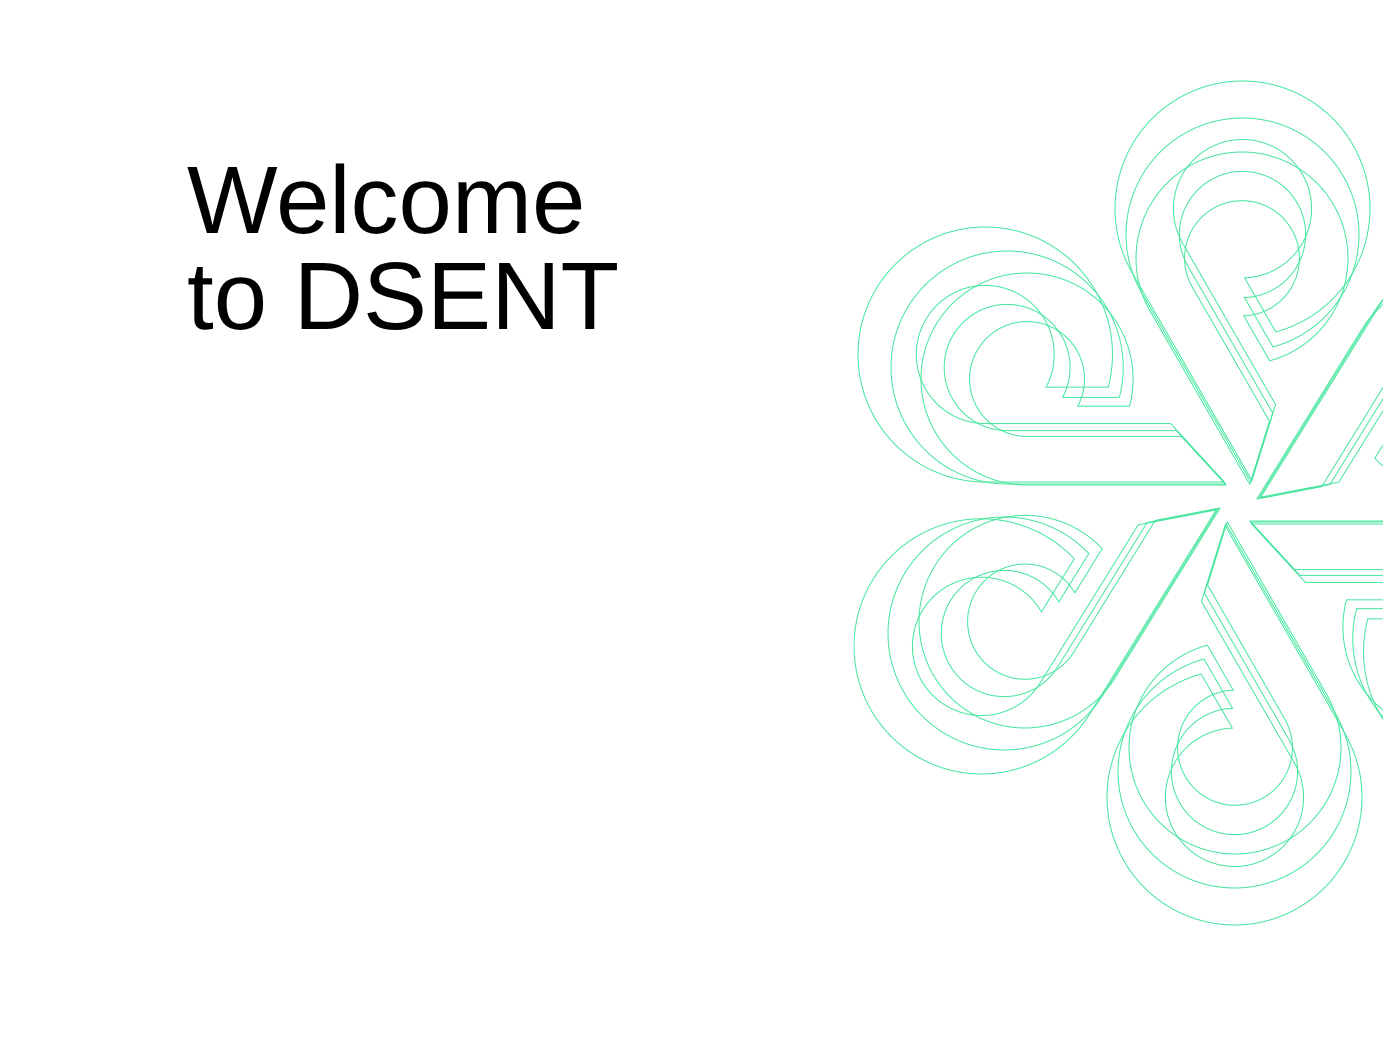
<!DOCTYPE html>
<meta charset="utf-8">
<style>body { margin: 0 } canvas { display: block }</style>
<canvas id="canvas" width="1399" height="1059"></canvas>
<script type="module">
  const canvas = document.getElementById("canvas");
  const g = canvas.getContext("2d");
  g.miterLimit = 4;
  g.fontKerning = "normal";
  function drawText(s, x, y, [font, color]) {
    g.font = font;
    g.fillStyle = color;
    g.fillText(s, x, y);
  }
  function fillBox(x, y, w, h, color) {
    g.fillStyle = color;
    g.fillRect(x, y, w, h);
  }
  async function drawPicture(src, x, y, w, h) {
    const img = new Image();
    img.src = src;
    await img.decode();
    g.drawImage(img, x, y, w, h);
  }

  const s1 = ["96px Liberation Sans", "#000000"];

  fillBox(0, 0, 1399, 1059, "#FFFFFF");
  drawText("Welcome", 187, 233, s1);
  drawText("to DSENT", 187, 329, s1);
  await drawPicture("pic1.png", 853, 80, 530, 846);
</script>
